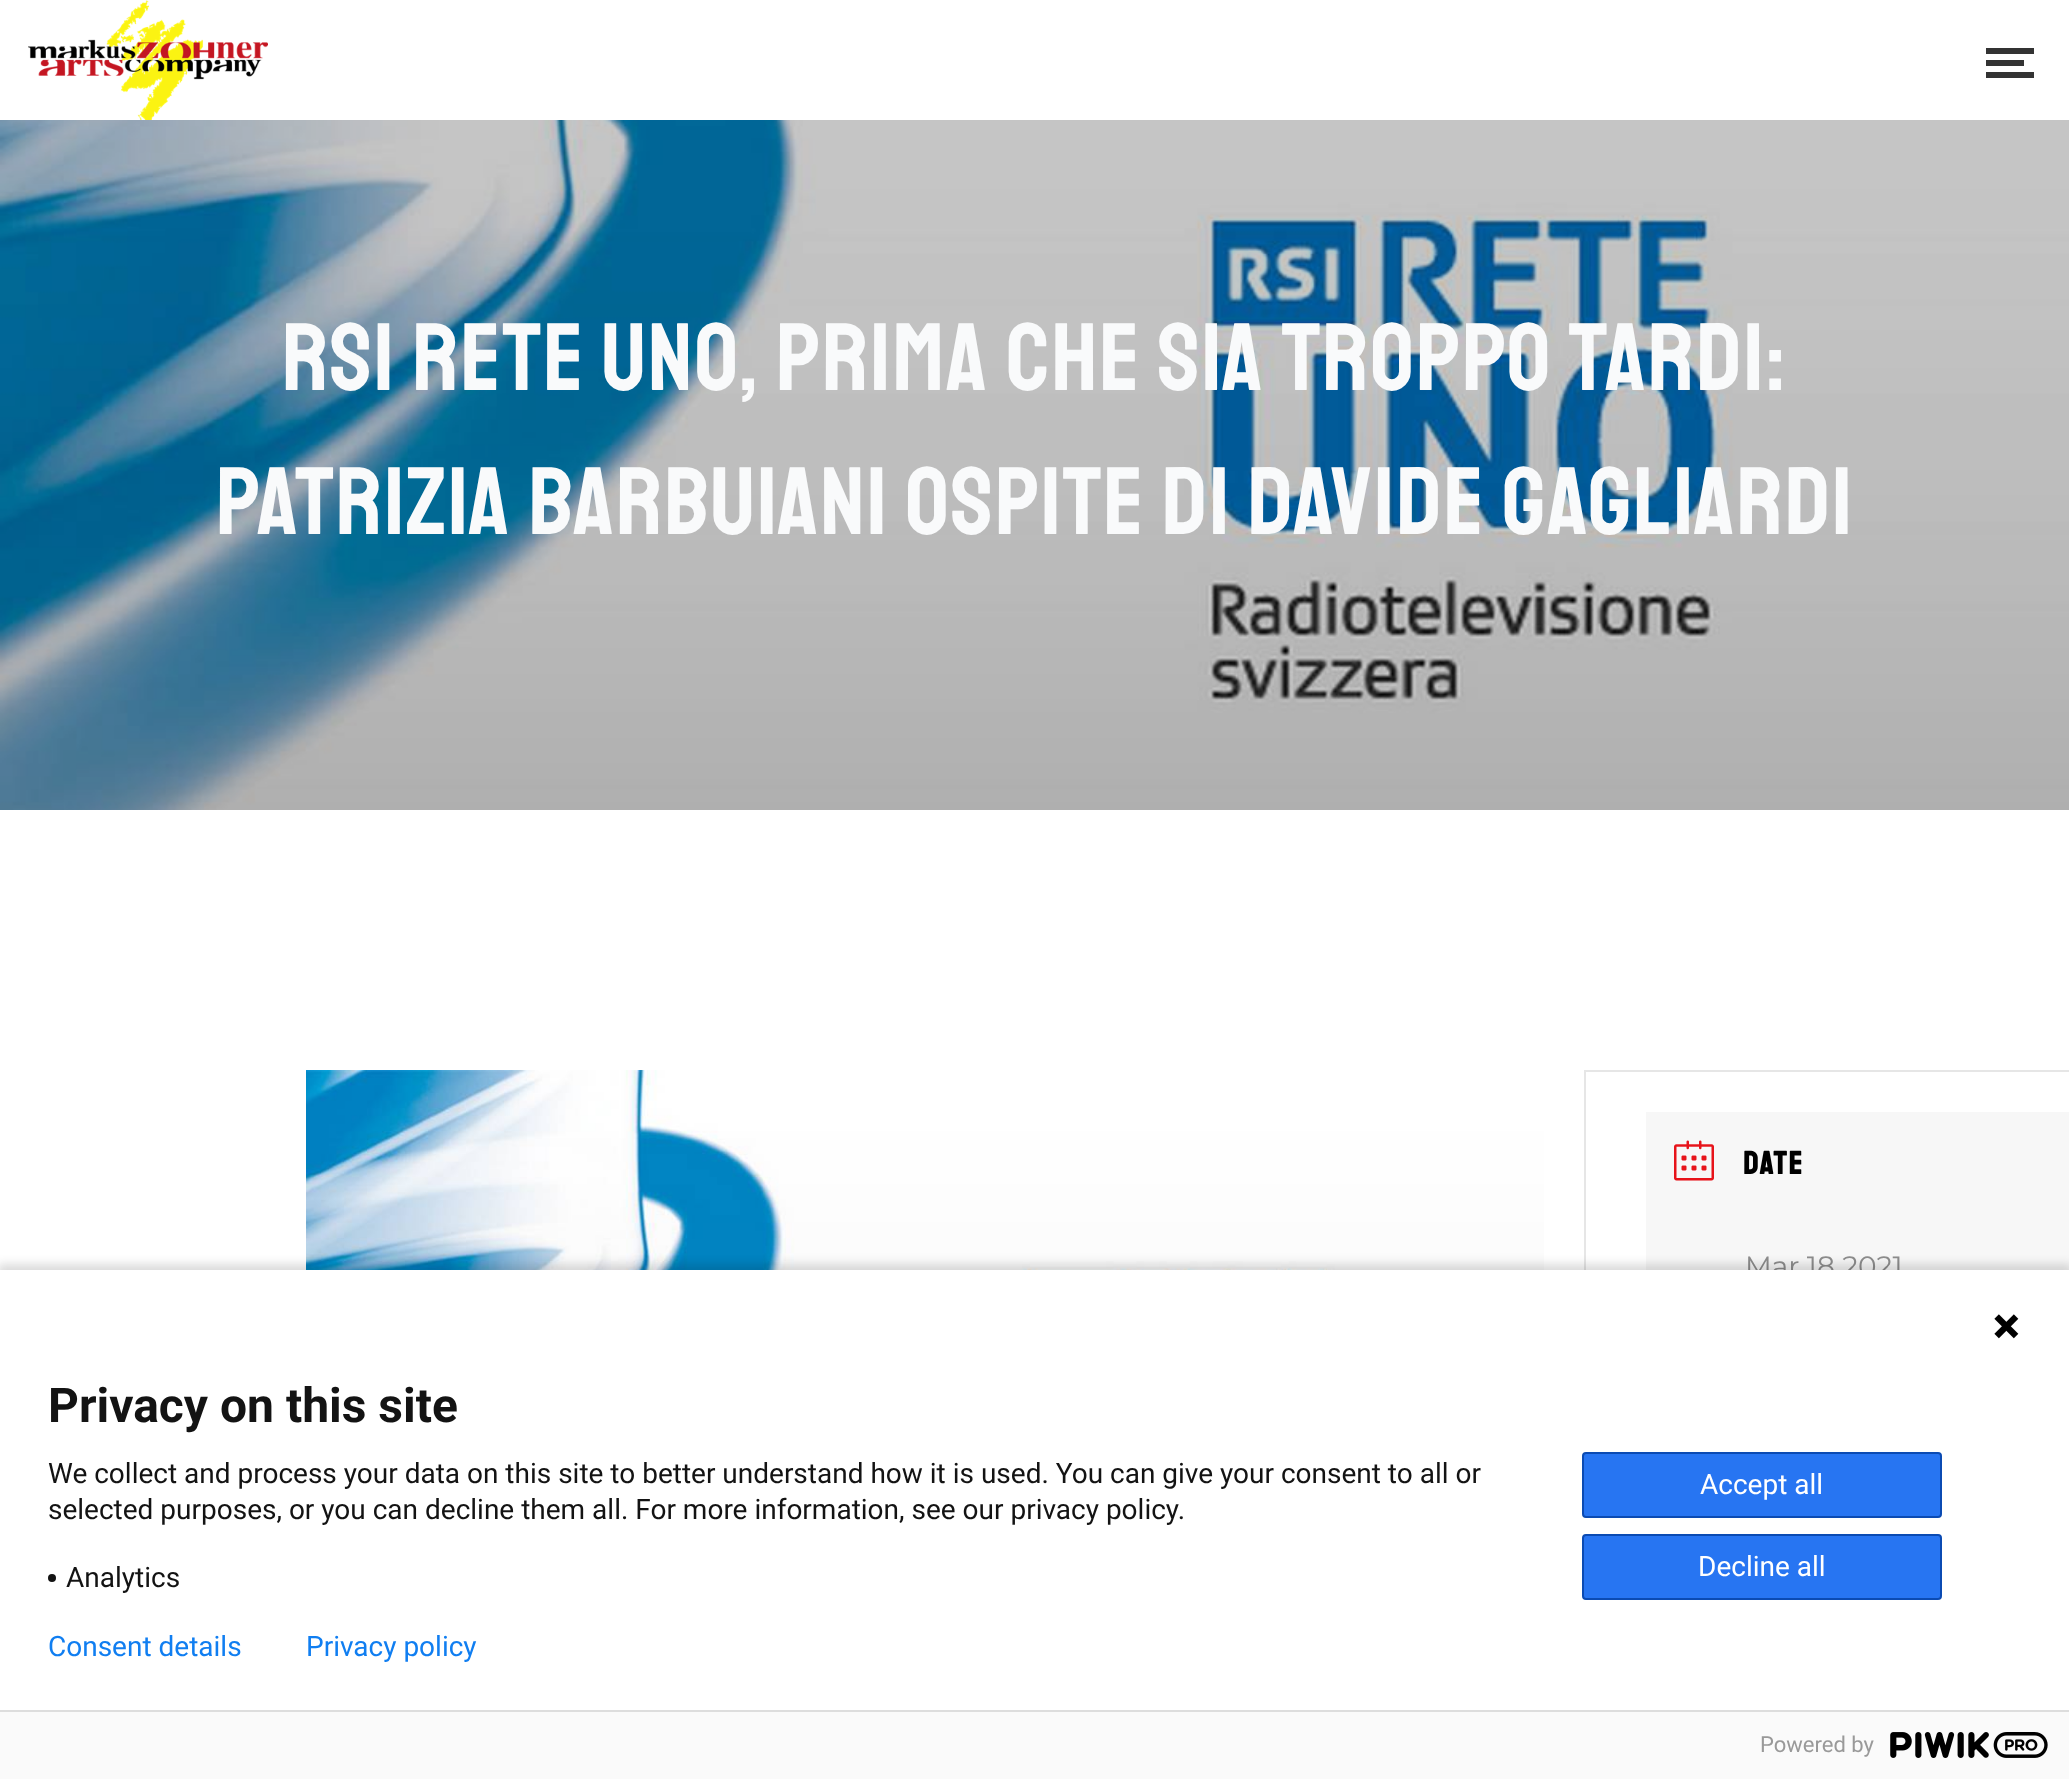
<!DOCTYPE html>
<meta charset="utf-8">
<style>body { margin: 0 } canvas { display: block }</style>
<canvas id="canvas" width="2069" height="1779"></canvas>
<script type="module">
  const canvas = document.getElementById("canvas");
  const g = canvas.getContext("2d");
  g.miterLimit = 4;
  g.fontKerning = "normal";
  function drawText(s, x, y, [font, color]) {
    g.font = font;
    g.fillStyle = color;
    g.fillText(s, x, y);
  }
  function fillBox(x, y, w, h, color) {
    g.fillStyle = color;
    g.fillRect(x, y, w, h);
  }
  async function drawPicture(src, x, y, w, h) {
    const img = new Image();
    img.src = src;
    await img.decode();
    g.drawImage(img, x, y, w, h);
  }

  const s1 = ["96px Staatliches", "#F9FAFB"];
  const s2 = ["bold 32px Staatliches", "#000000"];
  const s3 = ["28px Montserrat", "#8D8D8D"];
  const s4 = ["bold 48px Roboto", "#131313"];
  const s5 = ["28px Roboto", "#131313"];
  const s6 = ["28px Roboto", "#FFFFFF"];
  const s7 = ["28px Roboto", "#107EF1"];
  const s8 = ["22px Roboto", "#999999"];

  fillBox(0, 0, 2069, 1779, "#FFFFFF");
  await drawPicture("pic1.png", 28, 0, 240, 120);
  fillBox(1986, 48, 48, 6, "#333333");
  fillBox(1986, 60, 38, 6, "#333333");
  fillBox(1986, 72, 48, 6, "#333333");
  await drawPicture("pic2.png", 0, 120, 2069, 690);
  g.letterSpacing = "2px";
  drawText("RSI RETE UNO, PRIMA CHE SIA TROPPO TARDI:", 282, 390, s1);
  drawText("PATRIZIA BARBUIANI OSPITE DI DAVIDE GAGLIARDI", 216, 534, s1);
  await drawPicture("pic3.png", 306, 1070, 1238, 200);
  g.strokeStyle = "#E6E6E6";
  g.lineWidth = 2;
  g.strokeRect(1585, 1071, 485, 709);
  fillBox(1646, 1112, 423, 158, "#F7F7F7");
  await drawPicture("pic4.png", 1674, 1140, 40, 41);
  drawText("DATE", 1743, 1174, s2);
  g.letterSpacing = "0px";
  drawText("Mar 18 2021", 1745, 1276, s3);
  g.fillStyle = "rgba(0, 0, 0, 0.14)";
  g.filter = "blur(5px)";
  g.beginPath();
  g.rect(-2, 1264, 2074, 514);
  g.fill();
  g.filter = "none";
  fillBox(0, 1270, 2069, 440, "#FFFFFF");
  await drawPicture("pic5.png", 1994, 1314, 25, 25);
  drawText("Privacy on this site", 48, 1422, s4);
  drawText("We collect and process your data on this site to better understand how it is used. You can give your consent to all or", 48, 1483, s5);
  drawText("selected purposes, or you can decline them all. For more information, see our privacy policy.", 48, 1519, s5);
  g.beginPath();
  g.arc(52, 1578, 4, 0, Math.PI * 2);
  g.fill();
  drawText("Analytics", 66, 1587, s5);
  g.fillStyle = "#2775F2";
  g.beginPath();
  g.roundRect(1583, 1453, 358, 64, 3);
  g.fill();
  g.strokeStyle = "#0B4BB3";
  g.stroke();
  drawText("Accept all", 1700, 1494, s6);
  g.fillStyle = "#2775F2";
  g.beginPath();
  g.roundRect(1583, 1535, 358, 64, 3);
  g.fill();
  g.stroke();
  drawText("Decline all", 1698, 1576, s6);
  drawText("Consent details", 48, 1656, s7);
  drawText("Privacy policy", 306, 1656, s7);
  fillBox(0, 1712, 2069, 67, "#FAFAFA");
  fillBox(0, 1710, 2069, 2, "#DDDDDD");
  drawText("Powered by", 1760, 1752, s8);
  await drawPicture("pic6.png", 1890, 1732, 158, 26);
</script>
